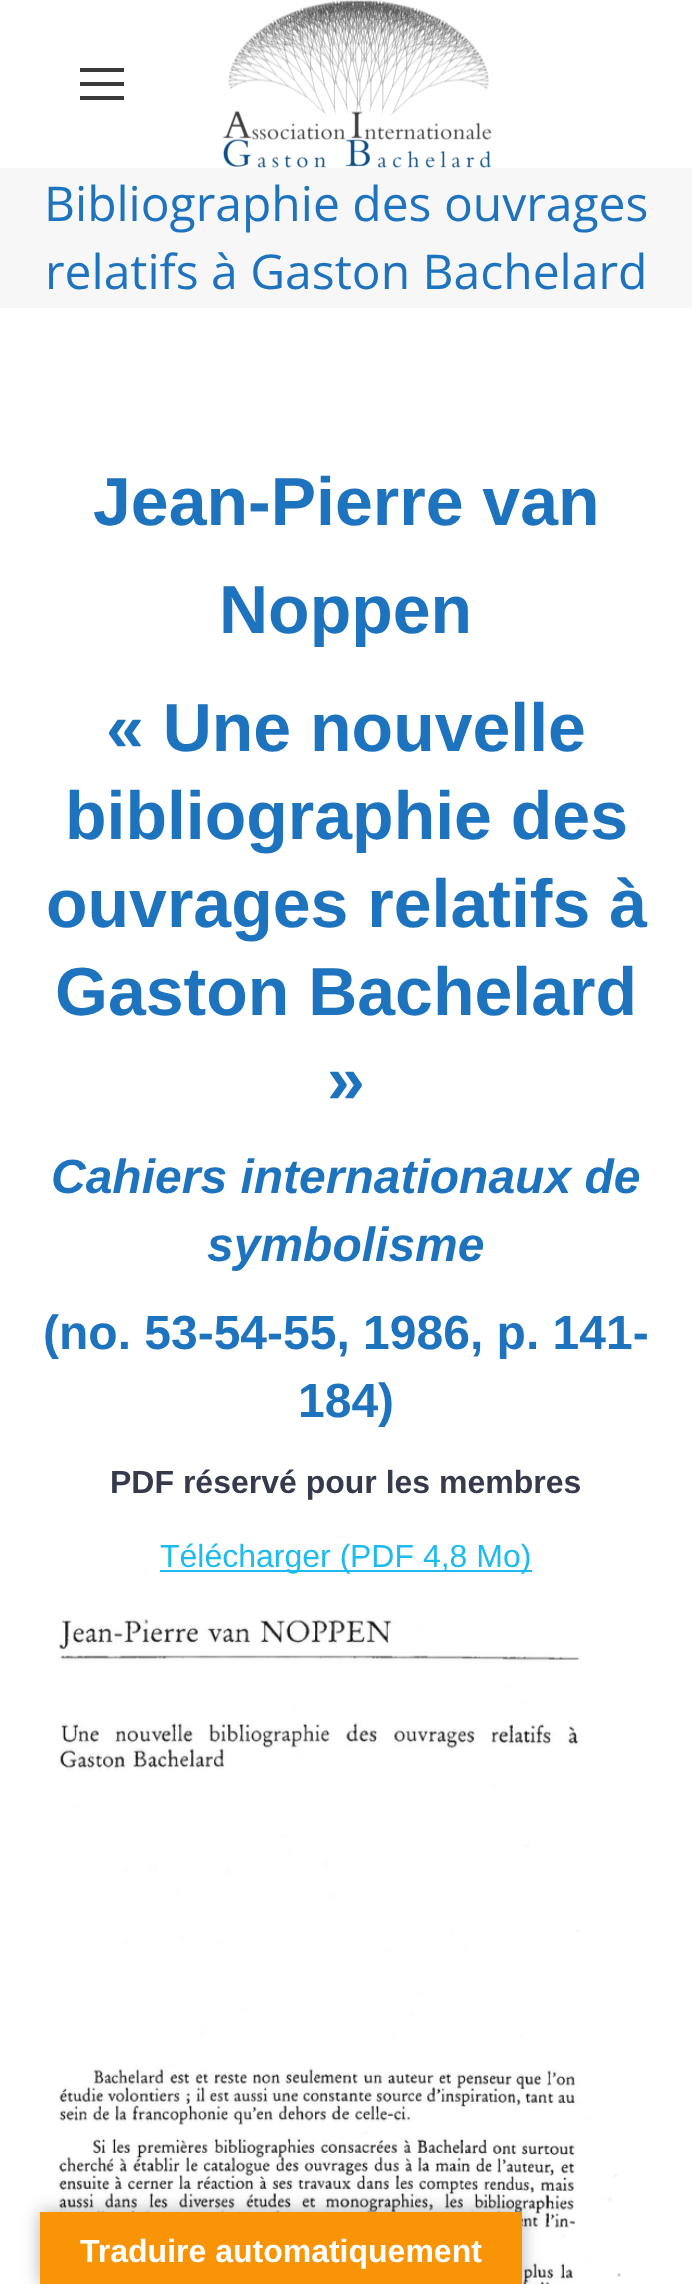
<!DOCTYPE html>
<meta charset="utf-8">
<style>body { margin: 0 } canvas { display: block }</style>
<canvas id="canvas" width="692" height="2284"></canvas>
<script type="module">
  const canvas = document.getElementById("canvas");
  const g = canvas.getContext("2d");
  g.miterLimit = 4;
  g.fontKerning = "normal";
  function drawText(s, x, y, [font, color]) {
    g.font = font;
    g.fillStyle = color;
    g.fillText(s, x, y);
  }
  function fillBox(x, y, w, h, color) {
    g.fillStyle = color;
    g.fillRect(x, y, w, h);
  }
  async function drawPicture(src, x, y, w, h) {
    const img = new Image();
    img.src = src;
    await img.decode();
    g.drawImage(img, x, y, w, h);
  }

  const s1 = ["48px Open Sans", "#1E73BE"];
  const s2 = ["bold 68px Liberation Sans", "#1E73BE"];
  const s3 = ["italic bold 48px Liberation Sans", "#1E73BE"];
  const s4 = ["bold 48px Liberation Sans", "#1E73BE"];
  const s5 = ["bold 32px Liberation Sans", "#363A4C"];
  const s6 = ["32px Liberation Sans", "#1EBBF0"];
  const s7 = ["bold 32px Liberation Sans", "#FFFFFF"];

  fillBox(0, 0, 692, 2284, "#FFFFFF");
  fillBox(80, 68, 44, 4, "#3A3A3A");
  fillBox(80, 82, 44, 4, "#3A3A3A");
  fillBox(80, 96, 44, 4, "#3A3A3A");
  await drawPicture("pic1.png", 222, 0, 270, 168);
  fillBox(0, 168, 692, 140, "#F7F7F7");
  drawText("Bibliographie des ouvrages", 44, 221, s1);
  drawText("relatifs à Gaston Bachelard", 45, 289, s1);
  drawText("Jean-Pierre van", 93, 525, s2);
  drawText("Noppen", 219, 633, s2);
  drawText("« Une nouvelle", 106, 751, s2);
  drawText("bibliographie des", 65, 839, s2);
  drawText("ouvrages relatifs à", 46, 927, s2);
  drawText("Gaston Bachelard", 55, 1015, s2);
  drawText("»", 327, 1103, s2);
  drawText("Cahiers internationaux de", 51, 1193, s3);
  drawText("symbolisme", 207, 1261, s3);
  drawText("(no. 53-54-55, 1986, p. 141-", 43, 1349, s4);
  drawText("184)", 298, 1417, s4);
  drawText("PDF réservé pour les membres", 110, 1493, s5);
  fillBox(160, 1570, 190, 2, "#1EBBF0");
  drawText("Télécharger (", 160, 1567, s6);
  fillBox(350, 1570, 182, 2, "#1EBBF0");
  drawText("PDF 4,8 Mo)", 350, 1567, s6);
  await drawPicture("pic2.png", 58, 1618, 563, 666);
  g.fillStyle = "rgba(0, 0, 0, 0.3)";
  g.filter = "blur(9px)";
  g.beginPath();
  g.rect(40, 2212, 482, 72);
  g.fill();
  g.filter = "none";
  fillBox(40, 2212, 482, 72, "#F89406");
  drawText("Traduire automatiquement", 80, 2262, s7);
</script>
